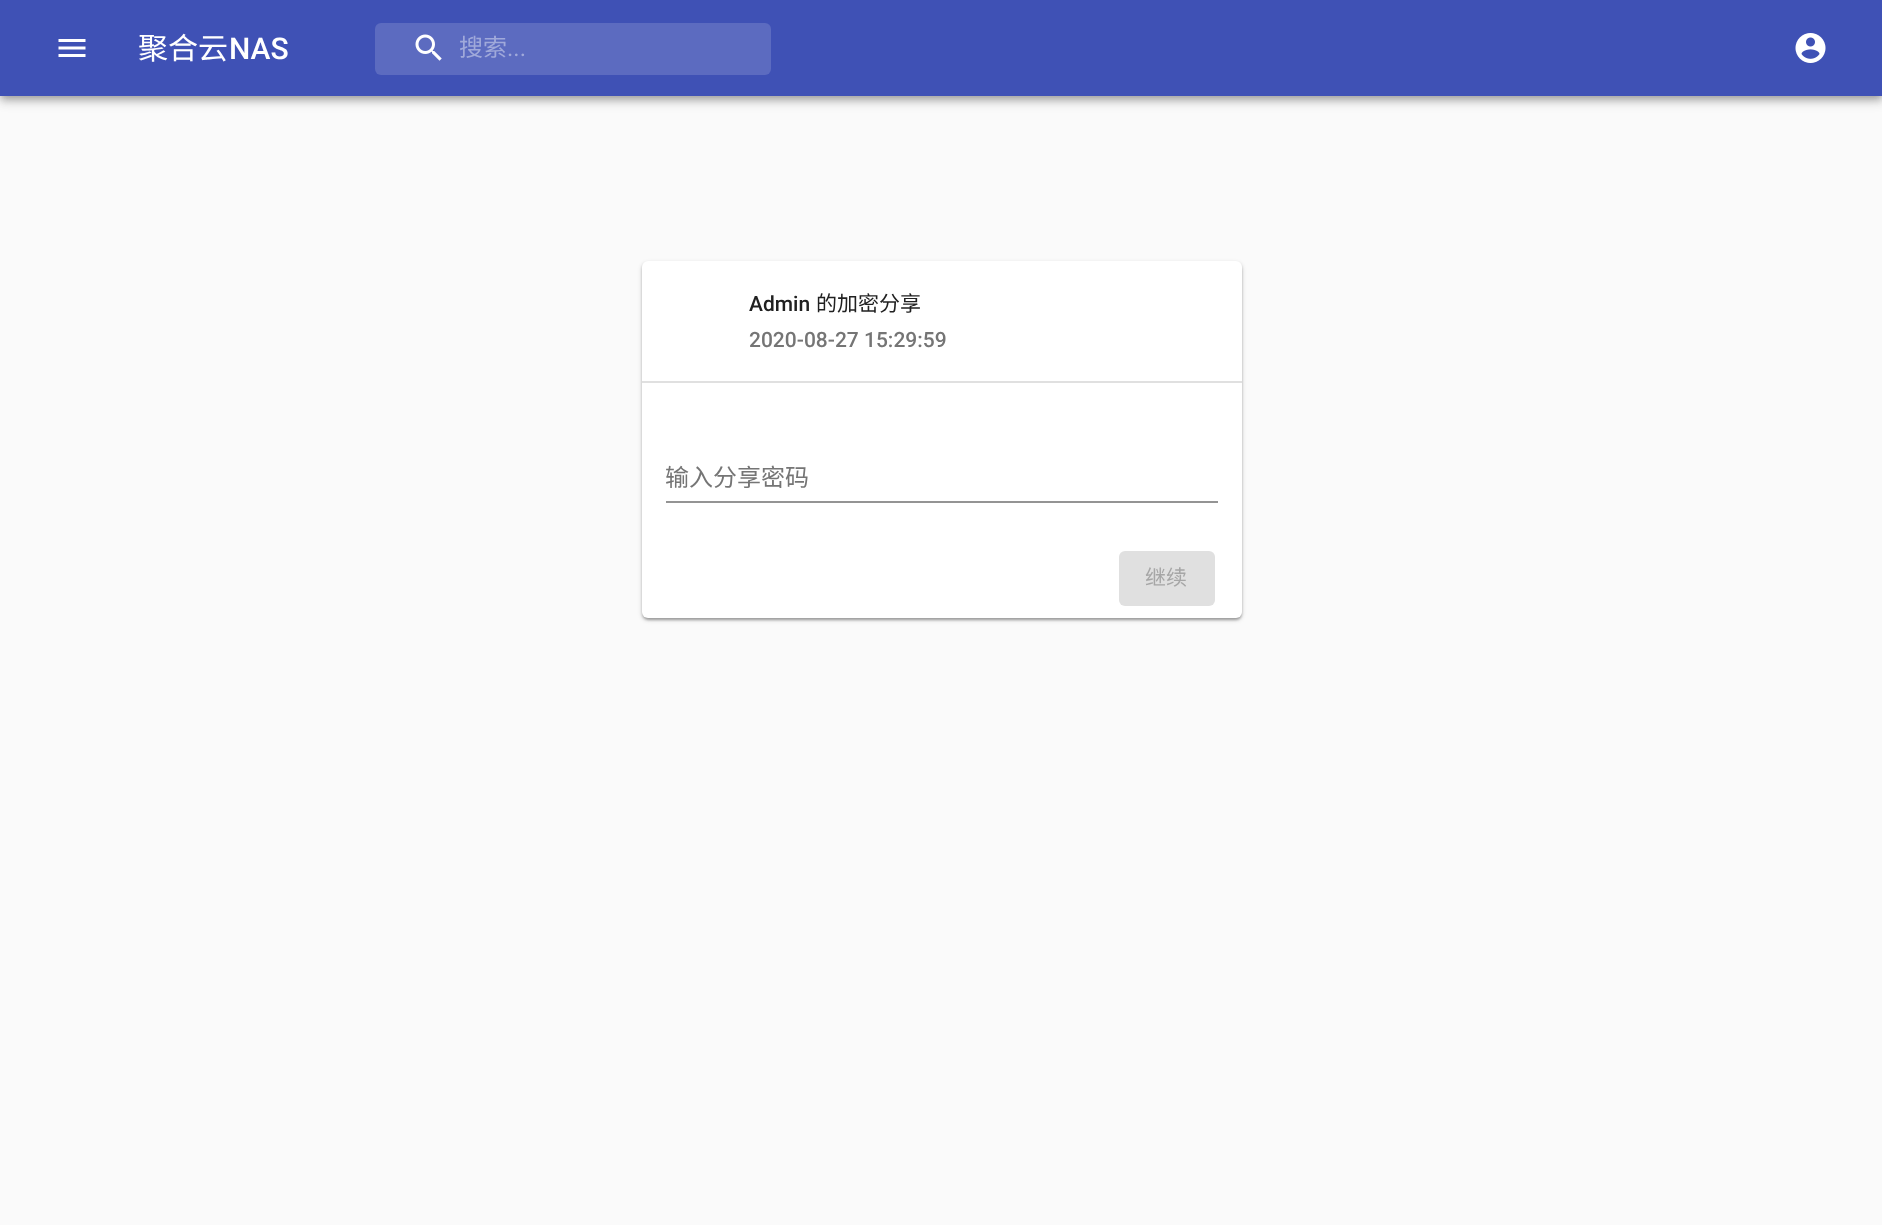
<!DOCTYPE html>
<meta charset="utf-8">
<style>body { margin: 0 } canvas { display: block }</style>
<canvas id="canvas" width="1882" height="1225"></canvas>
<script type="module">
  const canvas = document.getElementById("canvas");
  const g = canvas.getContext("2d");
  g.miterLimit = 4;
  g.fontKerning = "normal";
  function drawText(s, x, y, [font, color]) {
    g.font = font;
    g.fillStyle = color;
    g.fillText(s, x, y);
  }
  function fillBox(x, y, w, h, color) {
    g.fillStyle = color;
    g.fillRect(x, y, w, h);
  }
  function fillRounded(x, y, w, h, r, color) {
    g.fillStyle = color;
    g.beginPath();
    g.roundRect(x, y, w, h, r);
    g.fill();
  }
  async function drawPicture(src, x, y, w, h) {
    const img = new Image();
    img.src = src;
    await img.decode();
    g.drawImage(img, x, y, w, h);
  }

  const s1 = ["30px Noto Sans CJK SC", "#FFFFFF"];
  const s2 = ["500 30px Roboto", "#FFFFFF"];
  const s3 = ["24px Noto Sans CJK SC", "#A0A9DA"];
  const s4 = ["24px Roboto", "#A0A9DA"];
  const s5 = ["500 21px Roboto", "#212121"];
  const s6 = ["21px Noto Sans CJK SC", "#212121"];
  const s7 = ["500 21px Roboto", "#757575"];
  const s8 = ["24px Noto Sans CJK SC", "#757575"];
  const s9 = ["21px Noto Sans CJK SC", "#A6A6A6"];

  fillBox(0, 0, 1882, 1225, "#FAFAFA");
  g.fillStyle = "rgba(0, 0, 0, 0.12)";
  g.filter = "blur(7.5px)";
  g.beginPath();
  g.rect(0, 2, 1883, 96);
  g.fill();
  g.filter = "none";
  g.fillStyle = "rgba(0, 0, 0, 0.14)";
  g.filter = "blur(4px)";
  g.beginPath();
  g.rect(0, 6, 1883, 96);
  g.fill();
  g.filter = "none";
  g.fillStyle = "rgba(0, 0, 0, 0.2)";
  g.filter = "blur(3px)";
  g.beginPath();
  g.rect(2, 5, 1879, 93);
  g.fill();
  g.filter = "none";
  fillBox(0, 0, 1882, 96, "#3F51B5");
  await drawPicture("pic1.png", 58, 39, 28, 18);
  drawText("聚合云", 138, 59, s1);
  drawText("NAS", 229, 59, s2);
  fillRounded(375, 23, 396, 52, 6, "#5C6BC0");
  await drawPicture("pic2.png", 415, 34, 27, 27);
  drawText("搜索", 459, 56, s3);
  drawText("...", 507, 56, s4);
  await drawPicture("pic3.png", 1795, 33, 31, 30);
  g.fillStyle = "rgba(0, 0, 0, 0.12)";
  g.filter = "blur(1px)";
  g.beginPath();
  g.roundRect(644, 266, 597, 354, 5);
  g.fill();
  g.filter = "none";
  g.fillStyle = "rgba(0, 0, 0, 0.14)";
  g.filter = "blur(1px)";
  g.beginPath();
  g.roundRect(642, 263, 600, 357, 6);
  g.fill();
  g.filter = "none";
  g.fillStyle = "rgba(0, 0, 0, 0.2)";
  g.filter = "blur(2px)";
  g.beginPath();
  g.roundRect(642, 263, 600, 357, 6);
  g.fill();
  g.filter = "none";
  fillRounded(642, 261, 600, 357, 6, "#FFFFFF");
  drawText("Admin", 749, 311, s5);
  drawText("的加密分享", 816, 311, s6);
  drawText("2020-08-27 15:29:59", 749, 347, s7);
  fillBox(642, 381, 600, 2, "#E0E0E0");
  drawText("输入分享密码", 665, 486, s8);
  fillBox(666, 501, 552, 2, "#949494");
  fillRounded(1119, 551, 96, 55, 6, "#E0E0E0");
  drawText("继续", 1145, 585, s9);
</script>
